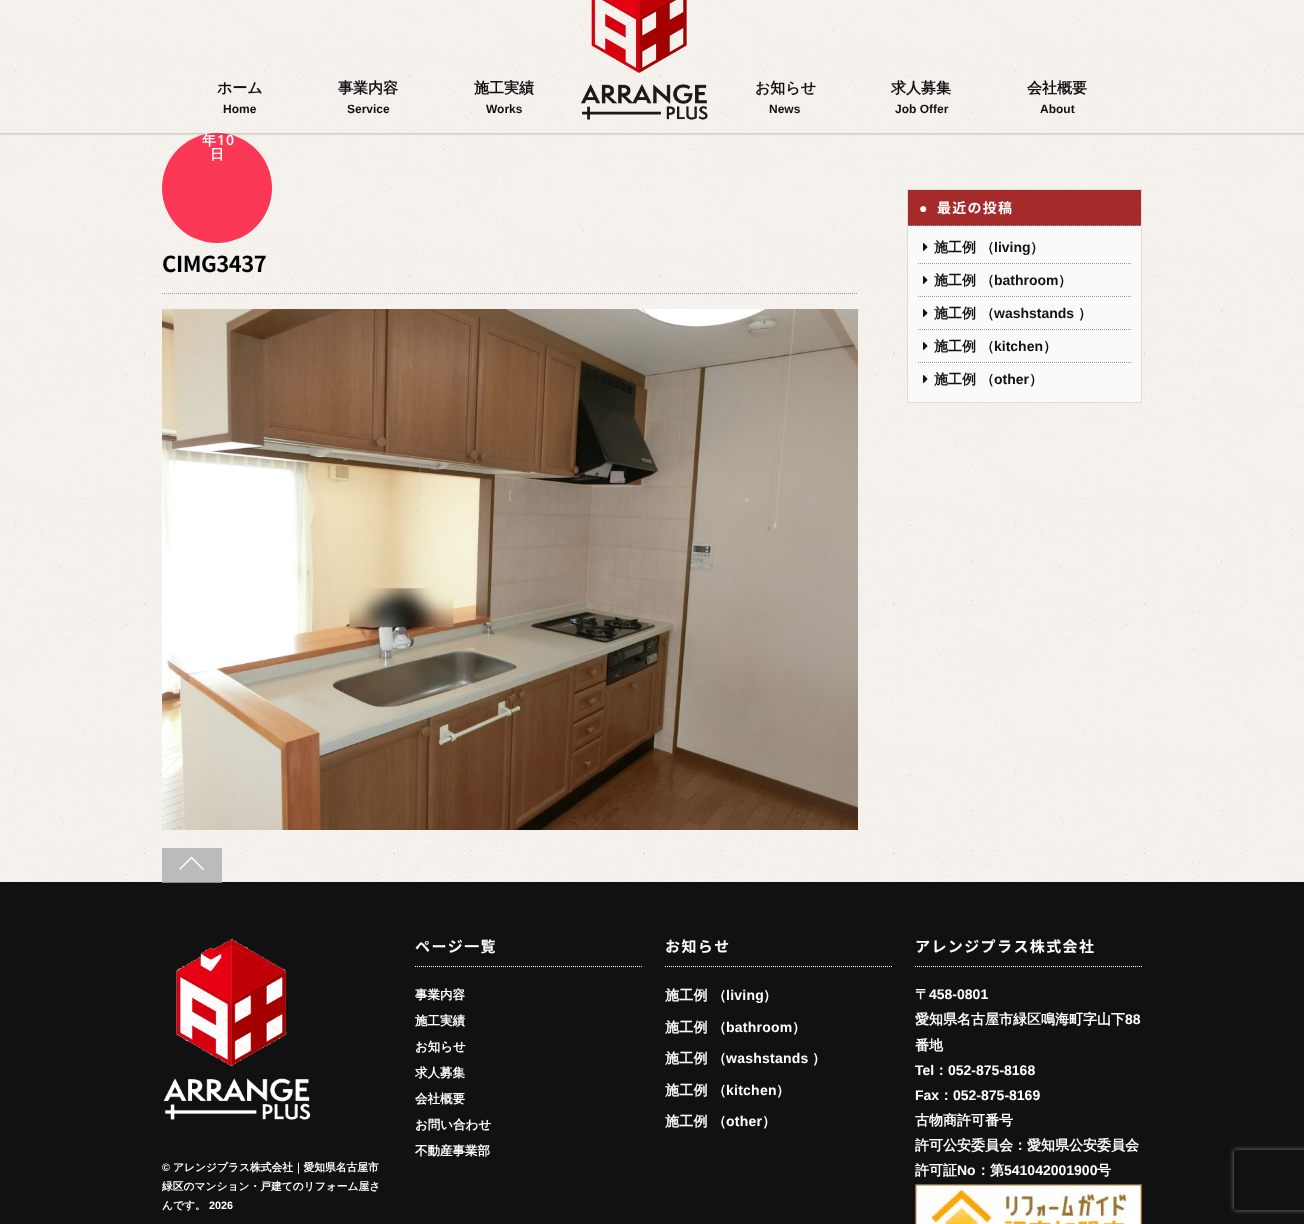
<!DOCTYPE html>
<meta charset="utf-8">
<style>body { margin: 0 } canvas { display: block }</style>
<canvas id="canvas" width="1304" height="1224"></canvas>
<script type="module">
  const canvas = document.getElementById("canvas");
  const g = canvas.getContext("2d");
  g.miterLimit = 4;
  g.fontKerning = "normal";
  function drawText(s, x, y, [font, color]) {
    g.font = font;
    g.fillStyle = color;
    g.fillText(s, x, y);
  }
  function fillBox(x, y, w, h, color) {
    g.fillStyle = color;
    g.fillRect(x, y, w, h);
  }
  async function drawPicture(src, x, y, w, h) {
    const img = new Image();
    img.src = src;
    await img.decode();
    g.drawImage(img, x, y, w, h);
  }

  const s1 = ["bold 15px WenQuanYi Zen Hei", "#111111"];
  const s2 = ["bold 12px Liberation Sans", "#111111"];
  const s3 = ["bold 14px WenQuanYi Zen Hei", "#FFFFFF"];
  const s4 = ["600 14px Open Sans", "#FFFFFF"];
  const s5 = ["bold 22px Noto Sans JP", "#000000"];
  const s6 = ["bold 14px Liberation Serif", "#FFFFFF"];
  const s7 = ["bold 14px Noto Sans JP", "#FFFFFF"];
  const s8 = ["bold 14px WenQuanYi Zen Hei", "#111111"];
  const s9 = ["bold 14px Liberation Sans", "#111111"];
  const s10 = ["bold 15px Noto Sans JP", "#FFFFFF"];
  const s11 = ["bold 12.5px WenQuanYi Zen Hei", "#FFFFFF"];
  const s12 = ["bold 14px Liberation Sans", "#FFFFFF"];
  const s13 = ["bold 10.75px Liberation Sans", "#FFFFFF"];
  const s14 = ["bold 10.75px WenQuanYi Zen Hei", "#FFFFFF"];

  fillBox(0, 0, 1304, 1224, "#FFFFFF");
  await drawPicture("pic3.png", 0, 133, 1304, 749);
  g.fillStyle = "rgba(251, 9, 48, 0.8)";
  g.beginPath();
  g.arc(217, 188, 55, 0, Math.PI * 2);
  g.fill();
  g.fillStyle = "rgba(66, 66, 66, 0.3)";
  g.filter = "blur(1px)";
  g.beginPath();
  g.rect(-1, -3, 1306, 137);
  g.fill();
  g.filter = "none";
  await drawPicture("pic1.png", 0, 0, 1304, 133);
  drawText("ホーム", 217, 93, s1);
  drawText("Home", 223, 113, s2);
  drawText("事業内容", 338, 93, s1);
  drawText("Service", 347, 113, s2);
  drawText("施工実績", 474, 93, s1);
  drawText("Works", 486, 113, s2);
  await drawPicture("pic2.png", 581, 0, 127, 120);
  drawText("お知らせ", 755, 93, s1);
  drawText("News", 769, 113, s2);
  drawText("求人募集", 891, 93, s1);
  drawText("Job Offer", 895, 113, s2);
  drawText("会社概要", 1027, 93, s1);
  drawText("About", 1040, 113, s2);
  g.letterSpacing = "1px";
  drawText("年", 202, 145, s3);
  drawText("10", 217, 145, s4);
  drawText("日", 210, 159, s3);
  g.beginPath();
  g.moveTo(162, 293.5);
  g.lineTo(858, 293.5);
  g.strokeStyle = "#999999";
  g.setLineDash([1, 1]);
  g.stroke();
  g.letterSpacing = "-0.5px";
  drawText("CIMG3437", 162, 272, s5);
  await drawPicture("pic4.png", 162, 309, 696, 521);
  fillBox(908, 226, 233, 176, "#FAFAFA");
  g.strokeStyle = "#DDDDDD";
  g.setLineDash([]);
  g.strokeRect(907.5, 189.5, 234, 213);
  fillBox(908, 190, 233, 36, "#A52A2A");
  g.beginPath();
  g.moveTo(908, 225.5);
  g.lineTo(1141, 225.5);
  g.strokeStyle = "#999999";
  g.setLineDash([1, 1]);
  g.stroke();
  g.letterSpacing = "1.25px";
  drawText("●", 919, 213, s6);
  drawText("最近の投稿", 937, 213, s7);
  g.beginPath();
  g.moveTo(918, 263.5);
  g.lineTo(1131, 263.5);
  g.stroke();
  await drawPicture("pic5.png", 923, 243, 5, 8);
  g.letterSpacing = "0px";
  drawText("施工例 （", 934, 252, s8);
  drawText("living", 994, 252, s9);
  drawText("）", 1030, 252, s8);
  g.beginPath();
  g.moveTo(918, 296.5);
  g.lineTo(1131, 296.5);
  g.stroke();
  await drawPicture("pic5.png", 923, 276, 5, 8);
  drawText("施工例 （", 934, 285, s8);
  drawText("bathroom", 994, 285, s9);
  drawText("）", 1058, 285, s8);
  g.beginPath();
  g.moveTo(918, 329.5);
  g.lineTo(1131, 329.5);
  g.stroke();
  await drawPicture("pic5.png", 923, 309, 5, 8);
  drawText("施工例 （", 934, 318, s8);
  drawText("washstands", 994, 318, s9);
  drawText("）", 1078, 318, s8);
  g.beginPath();
  g.moveTo(918, 362.5);
  g.lineTo(1131, 362.5);
  g.stroke();
  await drawPicture("pic5.png", 923, 342, 5, 8);
  drawText("施工例 （", 934, 351, s8);
  drawText("kitchen", 994, 351, s9);
  drawText("）", 1043, 351, s8);
  await drawPicture("pic5.png", 923, 375, 5, 8);
  drawText("施工例 （", 934, 384, s8);
  drawText("other", 994, 384, s9);
  drawText("）", 1029, 384, s8);
  fillBox(0, 882, 1304, 342, "#111111");
  fillBox(162, 848, 60, 35, "rgba(171, 171, 171, 0.78)");
  g.fillStyle = "#FFFFFF";
  g.beginPath();
  g.moveTo(204, 869);
  g.lineTo(203, 870);
  g.lineTo(191.5, 858.5);
  g.lineTo(180, 870);
  g.lineTo(179, 869);
  g.lineTo(191.5, 856.5);
  g.closePath();
  g.fill();
  g.beginPath();
  g.moveTo(415, 966.5);
  g.lineTo(642, 966.5);
  g.strokeStyle = "#FFFFFF";
  g.stroke();
  g.letterSpacing = "1.4px";
  drawText("ページ一覧", 415, 952, s10);
  g.letterSpacing = "0px";
  drawText("事業内容", 415, 999, s11);
  drawText("施工実績", 415, 1025, s11);
  drawText("お知らせ", 415, 1051, s11);
  drawText("求人募集", 415, 1077, s11);
  drawText("会社概要", 415, 1103, s11);
  drawText("お問い合わせ", 415, 1129, s11);
  drawText("不動産事業部", 415, 1155, s11);
  g.beginPath();
  g.moveTo(665, 966.5);
  g.lineTo(892, 966.5);
  g.stroke();
  g.letterSpacing = "1.4px";
  drawText("お知らせ", 665, 952, s10);
  g.letterSpacing = "0.25px";
  drawText("施工例 （", 665, 1000, s3);
  drawText("living", 726, 1000, s12);
  drawText("）", 763, 1000, s3);
  drawText("施工例 （", 665, 1032, s3);
  drawText("bathroom", 726, 1032, s12);
  drawText("）", 792, 1032, s3);
  drawText("施工例 （", 665, 1063, s3);
  drawText("washstands", 726, 1063, s12);
  drawText("）", 812, 1063, s3);
  drawText("施工例 （", 665, 1095, s3);
  drawText("kitchen", 726, 1095, s12);
  drawText("）", 776, 1095, s3);
  drawText("施工例 （", 665, 1126, s3);
  drawText("other", 726, 1126, s12);
  drawText("）", 762, 1126, s3);
  g.beginPath();
  g.moveTo(915, 966.5);
  g.lineTo(1142, 966.5);
  g.stroke();
  g.letterSpacing = "1.4px";
  drawText("アレンジプラス株式会社", 915, 952, s10);
  g.letterSpacing = "0px";
  drawText("〒", 915, 999, s3);
  drawText("458-0801", 929, 999, s12);
  drawText("愛知県名古屋市緑区鳴海町字山下", 915, 1024, s3);
  drawText("88", 1125, 1024, s12);
  drawText("番地", 915, 1050, s3);
  drawText("Tel", 915, 1075, s12);
  drawText("：", 934, 1075, s3);
  drawText("052-875-8168", 948, 1075, s12);
  drawText("Fax", 915, 1100, s12);
  drawText("：", 939, 1100, s3);
  drawText("052-875-8169", 953, 1100, s12);
  drawText("古物商許可番号", 915, 1125, s3);
  drawText("許可公安委員会：愛知県公安委員会", 915, 1150, s3);
  drawText("許可証", 915, 1175, s3);
  drawText("No", 957, 1175, s12);
  drawText("：第", 976, 1175, s3);
  drawText("541042001900", 1004, 1175, s12);
  drawText("号", 1097, 1175, s3);
  await drawPicture("pic6.png", 915, 1184, 227, 40);
  await drawPicture("pic7.png", 163, 938, 148, 182);
  drawText("©", 162, 1171, s13);
  drawText("アレンジプラス株式会社｜愛知県名古屋市", 173, 1171, s14);
  drawText("緑区のマンション・戸建てのリフォーム屋さ", 162, 1190, s14);
  drawText("んです。", 162, 1209, s14);
  drawText("2026", 209, 1209, s13);
  g.save();
  g.beginPath();
  g.moveTo(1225, 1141);
  g.lineTo(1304, 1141);
  g.lineTo(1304, 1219);
  g.lineTo(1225, 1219);
  g.closePath();
  g.moveTo(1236, 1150);
  g.lineTo(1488, 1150);
  g.bezierCurveTo(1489, 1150, 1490, 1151, 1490, 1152);
  g.lineTo(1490, 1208);
  g.bezierCurveTo(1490, 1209, 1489, 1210, 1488, 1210);
  g.lineTo(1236, 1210);
  g.bezierCurveTo(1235, 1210, 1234, 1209, 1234, 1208);
  g.lineTo(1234, 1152);
  g.bezierCurveTo(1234, 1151, 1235, 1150, 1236, 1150);
  g.closePath();
  g.clip("evenodd");
  g.fillStyle = "#808080";
  g.filter = "blur(2.5px)";
  g.beginPath();
  g.roundRect(1234, 1150, 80, 60, 2);
  g.fill();
  g.filter = "none";
  g.restore();
</script>
